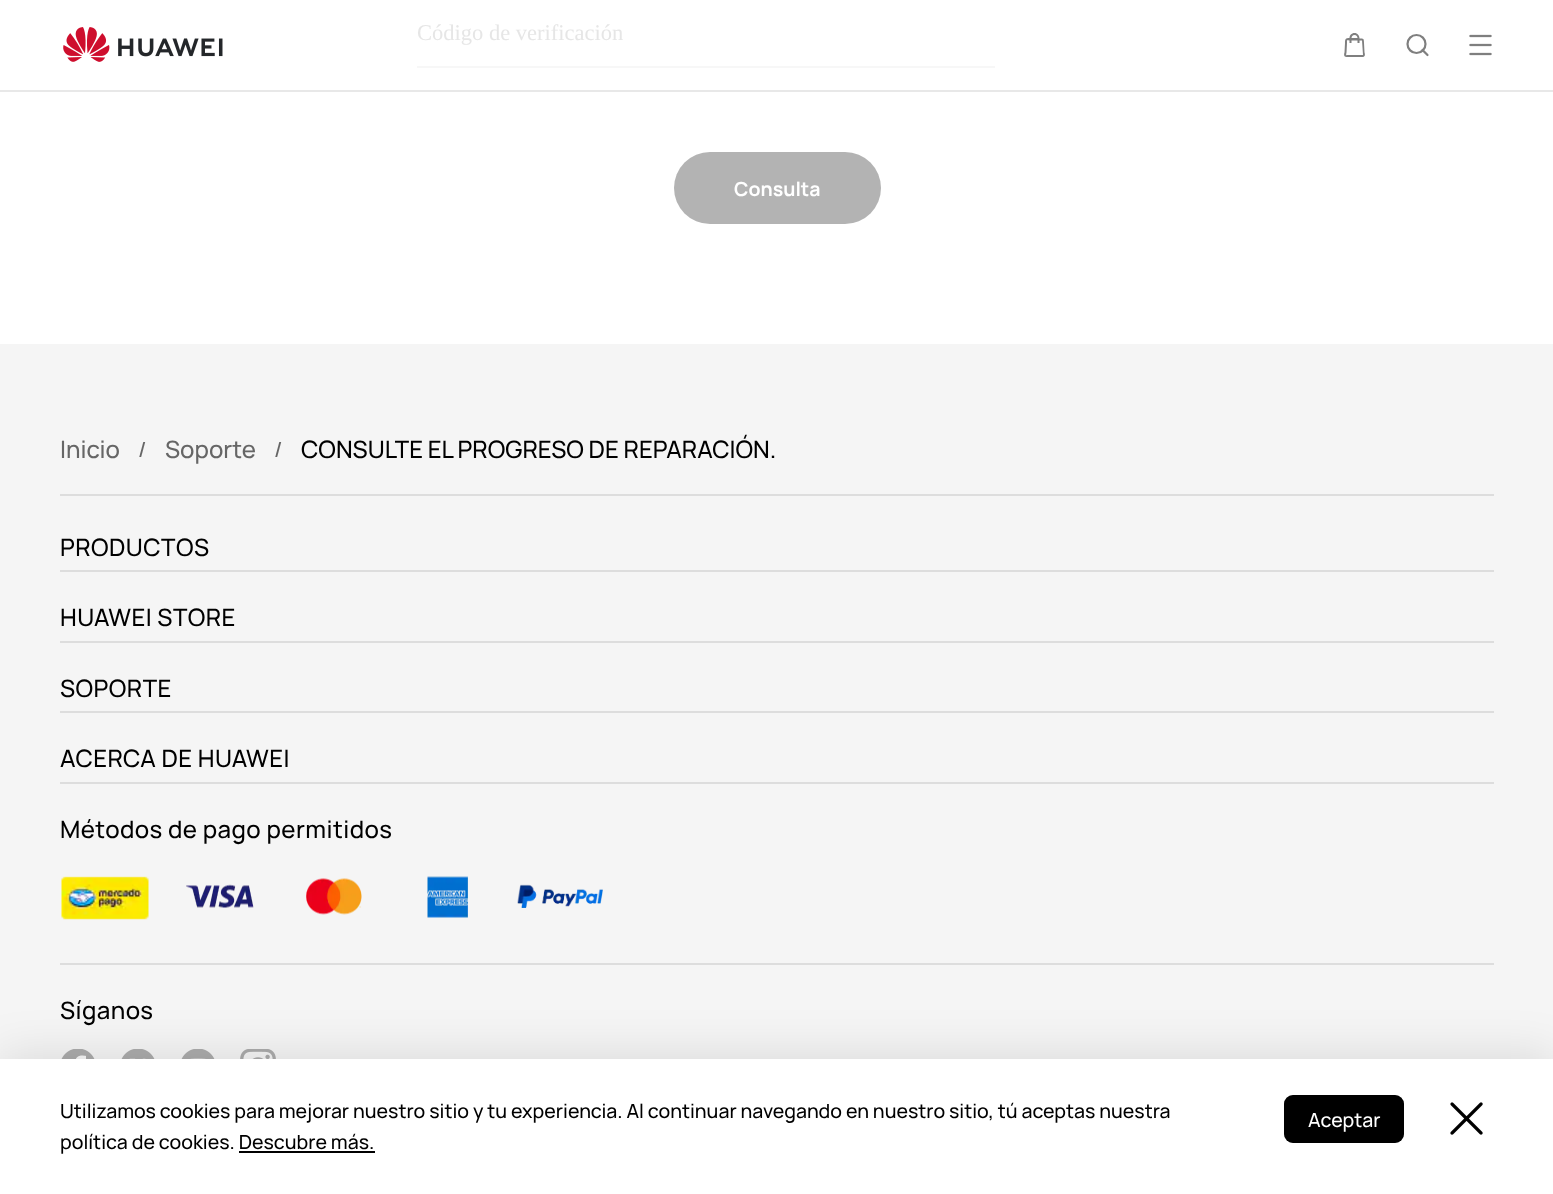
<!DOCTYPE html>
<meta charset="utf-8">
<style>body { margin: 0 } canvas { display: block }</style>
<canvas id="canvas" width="1553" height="1194"></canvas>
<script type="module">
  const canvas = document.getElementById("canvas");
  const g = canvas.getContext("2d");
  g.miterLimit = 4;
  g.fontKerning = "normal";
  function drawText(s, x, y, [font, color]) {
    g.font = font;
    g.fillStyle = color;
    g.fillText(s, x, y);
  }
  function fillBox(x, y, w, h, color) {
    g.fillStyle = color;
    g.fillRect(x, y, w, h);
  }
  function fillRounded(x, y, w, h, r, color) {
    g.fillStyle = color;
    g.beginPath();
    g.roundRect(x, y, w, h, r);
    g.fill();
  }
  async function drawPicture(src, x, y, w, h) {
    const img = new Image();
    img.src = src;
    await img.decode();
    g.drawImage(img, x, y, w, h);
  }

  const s1 = ["22.5px Liberation Serif", "#E6E6E6"];
  const s2 = ["bold 19.5px Manrope", "#FFFFFF"];
  const s3 = ["500 24px Manrope", "#666666"];
  const s4 = ["500 21px Manrope", "#666666"];
  const s5 = ["500 24px Manrope", "#000000"];
  const s6 = ["500 19.5px Manrope", "#000000"];
  const s7 = ["500 19.5px Manrope", "#FFFFFF"];

  fillBox(0, 0, 1553, 1194, "#FFFFFF");
  fillBox(417, 66, 578, 2, "#F7F7F7");
  drawText("Código de verificación", 417, 40, s1);
  fillRounded(674, 152, 207, 72, 36, "#B3B3B3");
  drawText("Consulta", 734, 196, s2);
  fillBox(0, 90, 1553, 2, "#E8E8E8");
  await drawPicture("pic1.png", 63, 27, 160, 35);
  g.fillStyle = "#7F7F7F";
  g.beginPath();
  g.moveTo(1354.5, 33);
  g.bezierCurveTo(1351.5, 33, 1349.5, 35.5, 1349.5, 38);
  g.bezierCurveTo(1345.5, 38, 1345, 39, 1345, 43);
  g.lineTo(1344.5, 52.5);
  g.bezierCurveTo(1344, 54, 1343.5, 57, 1346.5, 57);
  g.lineTo(1363, 57);
  g.bezierCurveTo(1365.5, 56.5, 1365, 54, 1364.5, 52.5);
  g.lineTo(1364, 43);
  g.bezierCurveTo(1364, 38.5, 1363.5, 38.5, 1359.5, 38.5);
  g.bezierCurveTo(1359.5, 35.5, 1357.5, 33, 1354.5, 33);
  g.closePath();
  g.moveTo(1354.5, 35);
  g.bezierCurveTo(1356.5, 35, 1357.5, 36.5, 1357.5, 38);
  g.lineTo(1351.5, 38);
  g.bezierCurveTo(1351.5, 36.5, 1352.5, 35, 1354.5, 35);
  g.closePath();
  g.moveTo(1361.5, 40.5);
  g.lineTo(1362, 40.5);
  g.lineTo(1363, 55);
  g.lineTo(1362.5, 55);
  g.lineTo(1349, 55);
  g.bezierCurveTo(1345.5, 55, 1346, 56, 1346.5, 52.5);
  g.lineTo(1347, 43);
  g.bezierCurveTo(1347, 39.5, 1346.5, 40.5, 1349.5, 40.5);
  g.lineTo(1349.5, 43);
  g.lineTo(1351.5, 43);
  g.lineTo(1351.5, 40.5);
  g.lineTo(1357.5, 40.5);
  g.lineTo(1357.5, 43);
  g.lineTo(1359.5, 43);
  g.lineTo(1359.5, 40.5);
  g.closePath();
  g.fill("evenodd");
  g.beginPath();
  g.arc(1416.5, 44, 9, 0, Math.PI * 2);
  g.strokeStyle = "#7F7F7F";
  g.lineWidth = 2.2;
  g.stroke();
  g.beginPath();
  g.moveTo(1427.5, 55);
  g.lineTo(1422.5, 50);
  g.lineCap = "round";
  g.lineJoin = "round";
  g.stroke();
  await drawPicture("pic2.png", 1469, 34, 23, 22);
  fillBox(0, 344, 1553, 715, "#F5F5F5");
  fillBox(60, 494, 1434, 2, "#DDDDDD");
  drawText("Inicio", 60, 458, s3);
  drawText("/", 138, 457, s4);
  drawText("Soporte", 165, 458, s3);
  drawText("/", 274, 457, s4);
  drawText("CONSULTE EL PROGRESO DE REPARACIÓN.", 301, 458, s5);
  fillBox(60, 570, 1434, 2, "#DDDDDD");
  g.letterSpacing = "0.45px";
  drawText("PRODUCTOS", 60, 556, s5);
  fillBox(60, 641, 1434, 2, "#DDDDDD");
  drawText("HUAWEI STORE", 60, 626, s5);
  fillBox(60, 711, 1434, 2, "#DDDDDD");
  drawText("SOPORTE", 60, 697, s5);
  fillBox(60, 782, 1434, 2, "#DDDDDD");
  drawText("ACERCA DE HUAWEI", 60, 767, s5);
  fillBox(60, 963, 1434, 2, "#DDDDDD");
  drawText("Métodos de pago permitidos", 60, 838, s5);
  await drawPicture("pic3.png", 61, 876, 88, 44);
  await drawPicture("pic4.png", 186, 884, 68, 24);
  await drawPicture("pic5.png", 306, 878, 56, 37);
  await drawPicture("pic6.png", 427, 876, 41, 42);
  await drawPicture("pic7.png", 517, 884, 86, 24);
  drawText("Síganos", 60, 1019, s5);
  await drawPicture("pic8.png", 61, 1049, 34, 10);
  await drawPicture("pic9.png", 121, 1049, 34, 10);
  await drawPicture("pic10.png", 181, 1049, 34, 10);
  await drawPicture("pic11.png", 240, 1049, 36, 10);
  g.fillStyle = "rgba(0, 0, 0, 0.1)";
  g.filter = "blur(22.5px)";
  g.beginPath();
  g.rect(0, 1053, 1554, 135);
  g.fill();
  g.filter = "none";
  fillBox(0, 1059, 1553, 135, "#FFFFFF");
  g.letterSpacing = "0px";
  drawText("Utilizamos cookies para mejorar nuestro sitio y tu experiencia. Al continuar navegando en nuestro sitio, tú aceptas nuestra", 60, 1118, s6);
  drawText("política de cookies. Descubre más.", 60, 1149, s6);
  fillBox(239, 1151, 136, 2, "#000000");
  fillRounded(1284, 1095, 120, 48, 9, "#000000");
  g.beginPath();
  g.roundRect(1285, 1096, 118, 46, 8);
  g.strokeStyle = "rgba(0, 0, 0, 0.3)";
  g.lineWidth = 2;
  g.lineJoin = "miter";
  g.stroke();
  drawText("Aceptar", 1308, 1127, s7);
  await drawPicture("pic12.png", 1450, 1102, 33, 33);
</script>
